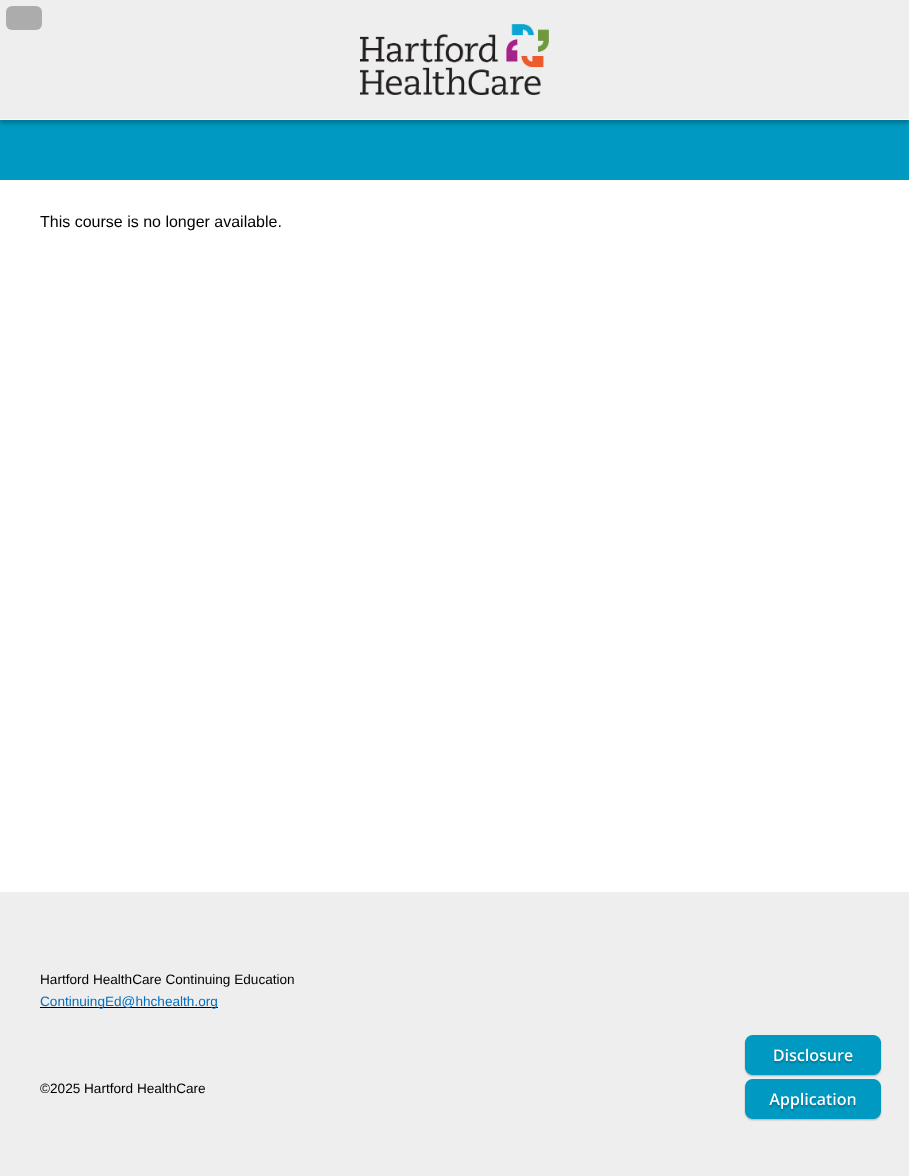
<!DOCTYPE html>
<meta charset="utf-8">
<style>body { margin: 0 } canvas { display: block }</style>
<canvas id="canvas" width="909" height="1176"></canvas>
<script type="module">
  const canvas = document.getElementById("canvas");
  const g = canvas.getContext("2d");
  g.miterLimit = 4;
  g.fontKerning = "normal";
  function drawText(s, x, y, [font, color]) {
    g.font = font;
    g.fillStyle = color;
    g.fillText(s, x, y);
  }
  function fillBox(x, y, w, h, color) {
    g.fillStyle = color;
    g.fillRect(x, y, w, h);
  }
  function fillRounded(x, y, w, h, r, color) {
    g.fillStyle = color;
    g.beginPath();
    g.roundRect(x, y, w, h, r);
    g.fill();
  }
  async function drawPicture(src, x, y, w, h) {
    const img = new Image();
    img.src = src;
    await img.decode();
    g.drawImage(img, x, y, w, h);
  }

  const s1 = ["16px Liberation Sans", "#000000"];
  const s2 = ["13.6px Liberation Sans", "#000000"];
  const s3 = ["13.6px Liberation Sans", "#0070C0"];

  fillBox(0, 0, 909, 1176, "#FFFFFF");
  fillBox(0, 120, 909, 60, "#0099C1");
  g.fillStyle = "rgba(0, 0, 0, 0.25)";
  g.filter = "blur(2px)";
  g.beginPath();
  g.rect(0, 3, 909, 120);
  g.fill();
  g.filter = "none";
  fillBox(0, 0, 909, 119, "#EEEEEE");
  fillRounded(6, 6, 36, 24, 6, "#ACACAC");
  fillBox(0, 119, 909, 1, "#FFFFFF");
  await drawPicture("pic1.png", 360, 24, 189, 71);
  drawText("This course is no longer available.", 40, 227, s1);
  fillBox(0, 892, 909, 284, "#EEEEEE");
  drawText("Hartford HealthCare Continuing Education", 40, 984, s2);
  fillBox(40, 1007, 178, 1, "#000000");
  drawText("ContinuingEd@hhchealth.org", 40, 1006, s3);
  drawText("©2025 Hartford HealthCare", 40, 1093, s2);
  await drawPicture("pic2.png", 744, 1035, 138, 42);
  await drawPicture("pic3.png", 744, 1079, 138, 42);
</script>
